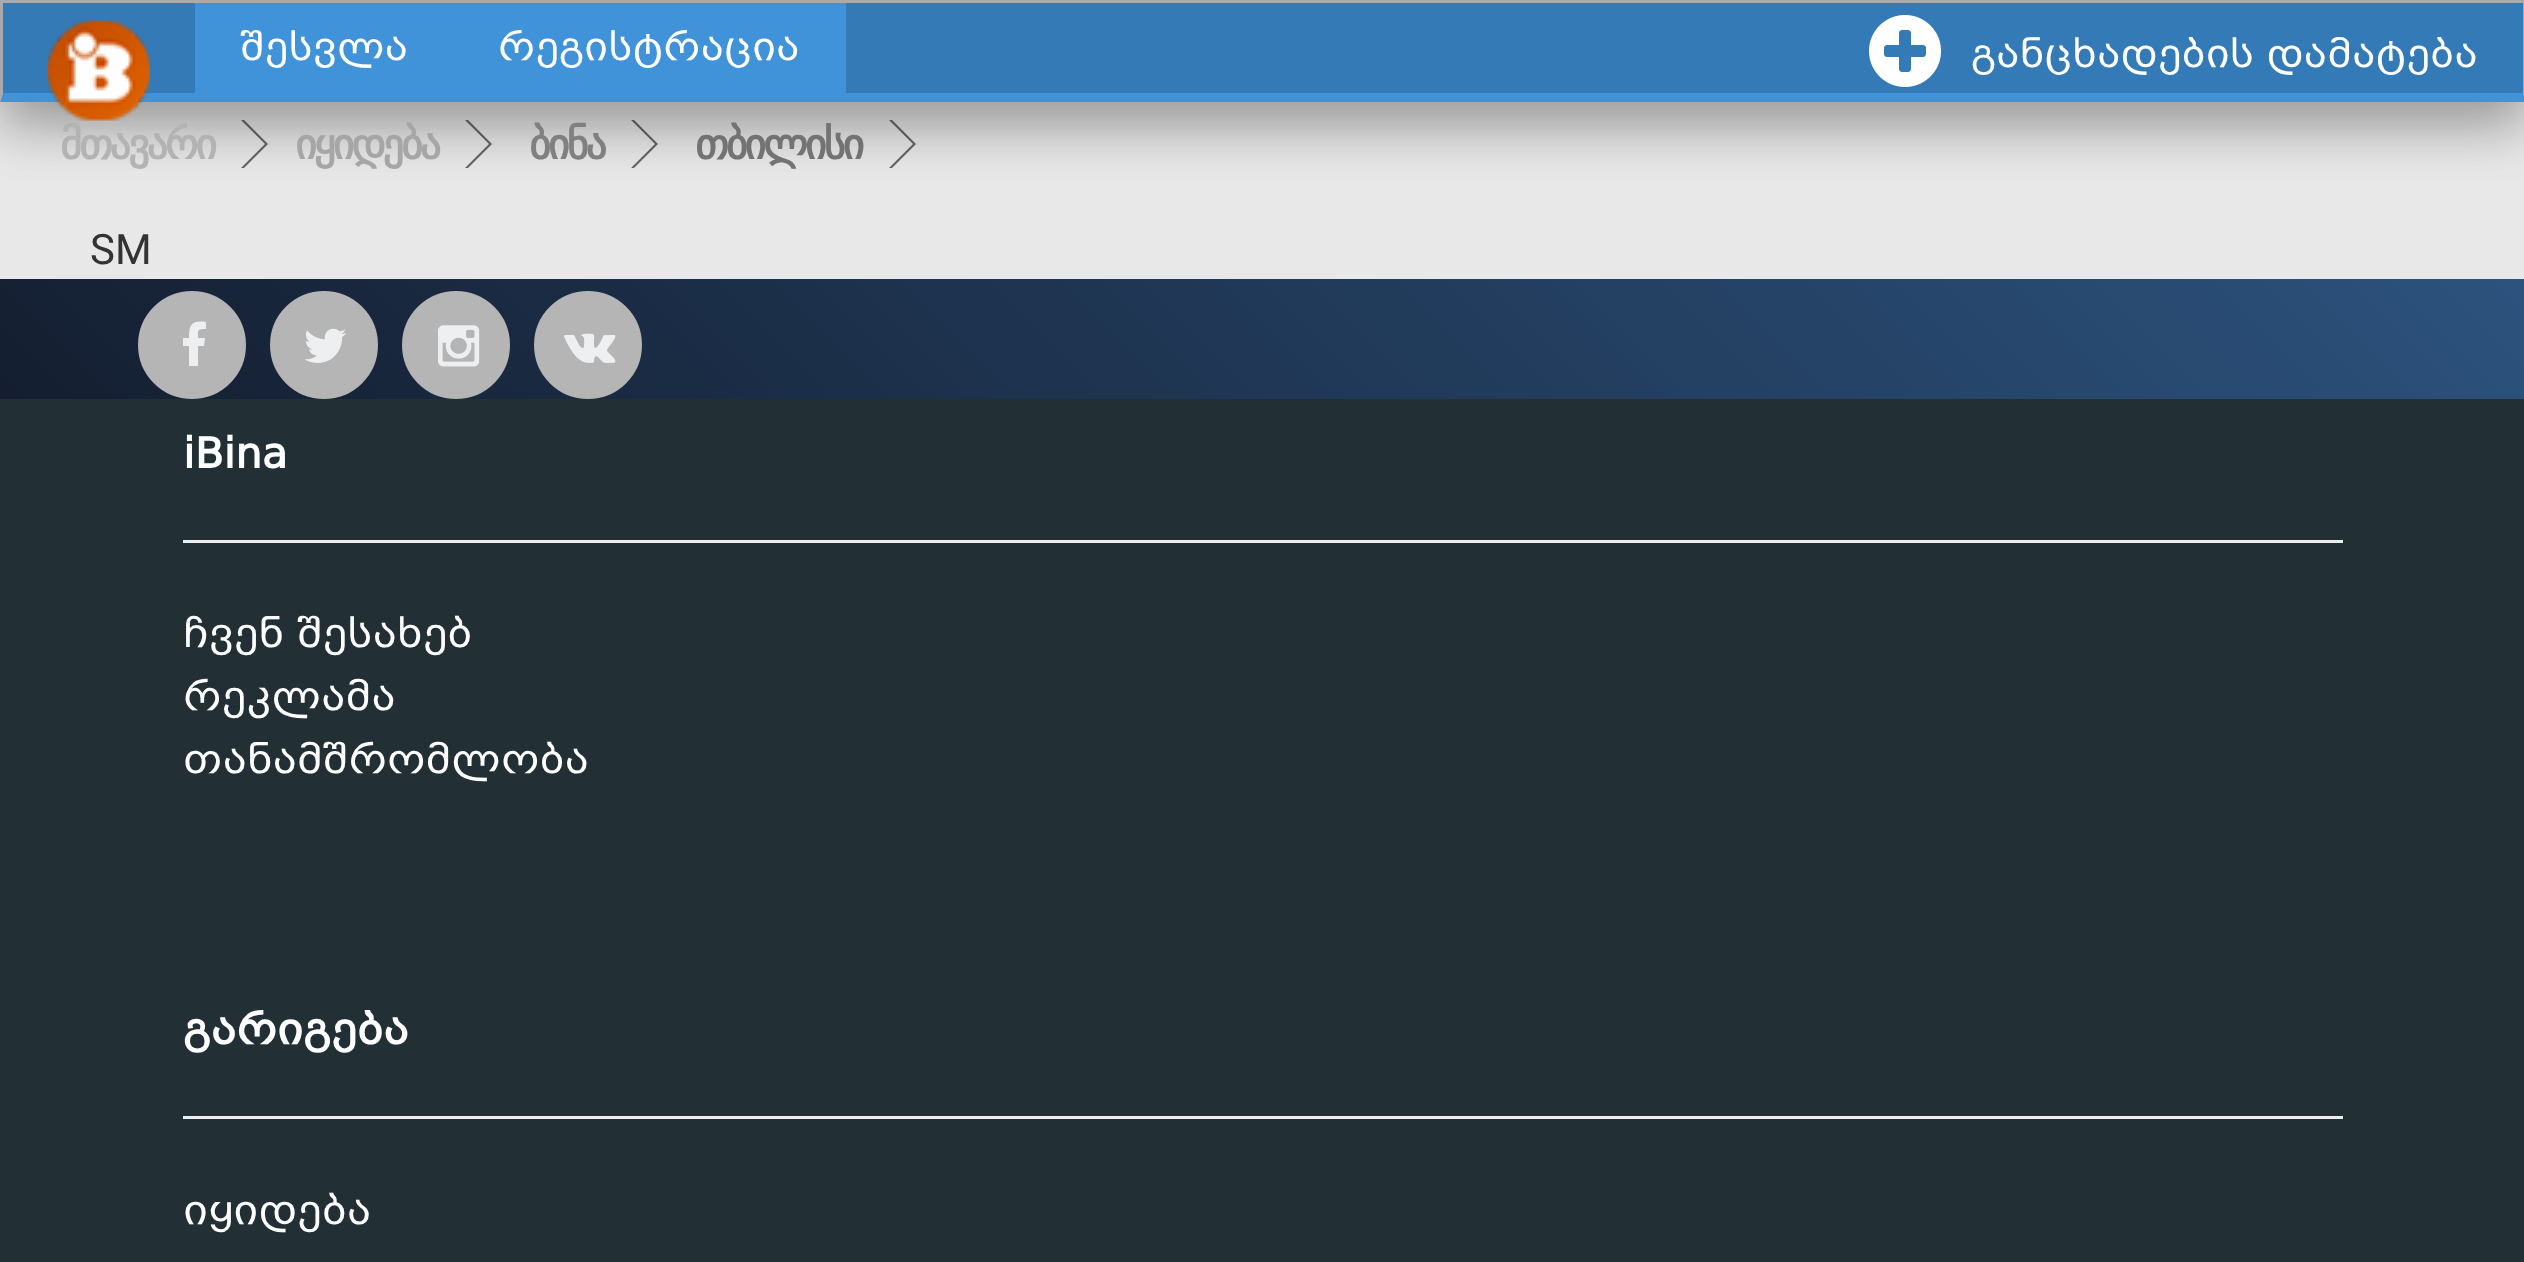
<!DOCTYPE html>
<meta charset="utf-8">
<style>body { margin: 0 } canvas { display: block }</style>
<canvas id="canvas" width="2524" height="1262"></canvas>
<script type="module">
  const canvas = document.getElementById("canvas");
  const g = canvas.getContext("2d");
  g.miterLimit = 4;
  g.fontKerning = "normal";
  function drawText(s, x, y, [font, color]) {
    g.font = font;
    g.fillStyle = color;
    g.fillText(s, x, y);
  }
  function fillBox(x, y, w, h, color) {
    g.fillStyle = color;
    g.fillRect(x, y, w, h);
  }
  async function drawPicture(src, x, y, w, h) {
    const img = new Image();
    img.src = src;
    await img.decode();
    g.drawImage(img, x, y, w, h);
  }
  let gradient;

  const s1 = ["38.4px 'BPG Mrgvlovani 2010'", "#FFFFFF"];
  const s2 = ["bold 42px DejaVu Sans", "#B3B3B3"];
  const s3 = ["bold 42px DejaVu Sans", "#A6A6A6"];
  const s4 = ["bold 42px DejaVu Sans", "#808080"];
  const s5 = ["bold 42px DejaVu Sans", "#737373"];
  const s6 = ["42px Roboto", "#333333"];
  const s7 = ["bold 42px 'BPG Mrgvlovani 2010'", "#FFFFFF"];
  const s8 = ["39.9px 'BPG Mrgvlovani 2010'", "#FFFFFF"];

  fillBox(0, 0, 2524, 1262, "#E8E8E8");
  g.fillStyle = "#666666";
  g.beginPath();
  g.moveTo(241, 120);
  g.lineTo(244, 120);
  g.lineTo(268, 144);
  g.lineTo(265, 144);
  g.closePath();
  g.moveTo(265, 144);
  g.lineTo(268, 144);
  g.lineTo(244, 168);
  g.lineTo(241, 168);
  g.closePath();
  g.fill();
  g.beginPath();
  g.moveTo(465, 120);
  g.lineTo(468, 120);
  g.lineTo(492, 144);
  g.lineTo(489, 144);
  g.closePath();
  g.moveTo(489, 144);
  g.lineTo(492, 144);
  g.lineTo(468, 168);
  g.lineTo(465, 168);
  g.closePath();
  g.fill();
  g.beginPath();
  g.moveTo(631, 120);
  g.lineTo(634, 120);
  g.lineTo(658, 144);
  g.lineTo(655, 144);
  g.closePath();
  g.moveTo(655, 144);
  g.lineTo(658, 144);
  g.lineTo(634, 168);
  g.lineTo(631, 168);
  g.closePath();
  g.fill();
  g.beginPath();
  g.moveTo(889, 120);
  g.lineTo(892, 120);
  g.lineTo(916, 144);
  g.lineTo(913, 144);
  g.closePath();
  g.moveTo(913, 144);
  g.lineTo(916, 144);
  g.lineTo(892, 168);
  g.lineTo(889, 168);
  g.closePath();
  g.fill();
  g.fillStyle = "rgba(0, 0, 0, 0.19)";
  g.filter = "blur(30px)";
  g.beginPath();
  g.rect(0, 18, 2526, 102);
  g.fill();
  g.filter = "none";
  g.fillStyle = "rgba(0, 0, 0, 0.2)";
  g.filter = "blur(25.5px)";
  g.beginPath();
  g.rect(0, 24, 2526, 102);
  g.fill();
  g.filter = "none";
  fillBox(3, 3, 2520, 90, "#337AB7");
  fillBox(0, 0, 2524, 3, "#AAAAAA");
  g.beginPath();
  g.moveTo(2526, 0);
  g.lineTo(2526, 102);
  g.lineTo(2523, 93);
  g.lineTo(2523, 3);
  g.closePath();
  g.fill();
  g.fillStyle = "#4092D9";
  g.beginPath();
  g.moveTo(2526, 102);
  g.lineTo(0, 102);
  g.lineTo(3, 93);
  g.lineTo(2523, 93);
  g.closePath();
  g.fill();
  g.fillStyle = "#AAAAAA";
  g.beginPath();
  g.moveTo(0, 102);
  g.lineTo(0, 0);
  g.lineTo(3, 3);
  g.lineTo(3, 93);
  g.closePath();
  g.fill();
  await drawPicture("pic1.png", 48, 20, 102, 101);
  fillBox(195, 3, 651, 90, "#4092D9");
  drawText("შესვლა", 240, 60, s1);
  drawText("რეგისტრაცია", 498, 60, s1);
  await drawPicture("pic2.png", 1869, 15, 72, 72);
  drawText("განცხადების დამატება", 1971, 67, s1);
  g.letterSpacing = "-3px";
  drawText("მთავარი", 60, 159, s2);
  drawText("იყიდება", 295, 159, s3);
  drawText("ბინა", 529, 159, s4);
  drawText("თბილისი", 695, 159, s5);
  g.letterSpacing = "0px";
  drawText("SM", 90, 264, s6);
  fillBox(0, 399, 2524, 863, "#223035");
  gradient = g.createLinearGradient(602, 1001, 1925, -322);
  gradient.addColorStop(0, "#141E30");
  gradient.addColorStop(1, "#2C527D");
  g.fillStyle = gradient;
  g.fillRect(0, 279, 2524, 120);
  g.fillStyle = "#B5B5B5";
  g.beginPath();
  g.arc(192, 345, 51, 0, Math.PI * 2);
  g.fill();
  g.strokeStyle = "#B5B5B5";
  g.lineWidth = 6;
  g.stroke();
  g.fillStyle = "#EDEFF1";
  g.beginPath();
  g.moveTo(206, 322);
  g.lineTo(206, 329);
  g.bezierCurveTo(197, 329, 198, 330, 198, 338);
  g.lineTo(205, 338);
  g.lineTo(204, 346);
  g.lineTo(198, 346);
  g.lineTo(198, 366);
  g.lineTo(189, 366);
  g.lineTo(189, 346);
  g.lineTo(183, 346);
  g.lineTo(183, 338);
  g.lineTo(189, 338);
  g.bezierCurveTo(189, 325, 191, 320, 206, 322);
  g.closePath();
  g.fill();
  g.fillStyle = "#B5B5B5";
  g.beginPath();
  g.arc(324, 345, 51, 0, Math.PI * 2);
  g.fill();
  g.stroke();
  await drawPicture("pic3.png", 304, 328, 42, 35);
  g.beginPath();
  g.arc(456, 345, 51, 0, Math.PI * 2);
  g.fill();
  g.stroke();
  await drawPicture("pic4.png", 438, 325, 42, 42);
  g.beginPath();
  g.arc(588, 345, 51, 0, Math.PI * 2);
  g.fill();
  g.stroke();
  await drawPicture("pic5.png", 564, 333, 52, 30);
  drawText("iBina", 183, 468, s7);
  fillBox(183, 540, 2160, 3, "#EEEEEE");
  drawText("ჩვენ შესახებ", 183, 647, s8);
  drawText("რეკლამა", 183, 710, s8);
  drawText("თანამშრომლობა", 183, 773, s8);
  drawText("გარიგება", 183, 1044, s7);
  fillBox(183, 1116, 2160, 3, "#EEEEEE");
  drawText("იყიდება", 183, 1224, s8);
</script>
